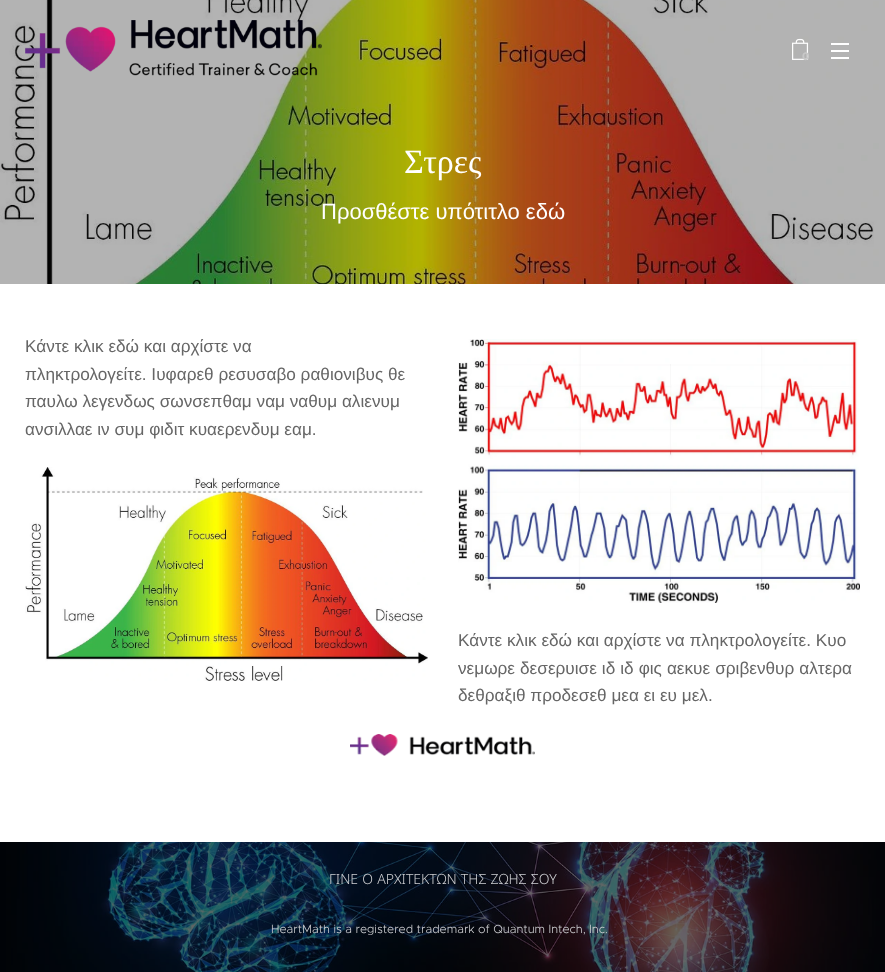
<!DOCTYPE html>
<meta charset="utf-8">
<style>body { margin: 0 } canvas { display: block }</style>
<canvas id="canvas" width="885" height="972"></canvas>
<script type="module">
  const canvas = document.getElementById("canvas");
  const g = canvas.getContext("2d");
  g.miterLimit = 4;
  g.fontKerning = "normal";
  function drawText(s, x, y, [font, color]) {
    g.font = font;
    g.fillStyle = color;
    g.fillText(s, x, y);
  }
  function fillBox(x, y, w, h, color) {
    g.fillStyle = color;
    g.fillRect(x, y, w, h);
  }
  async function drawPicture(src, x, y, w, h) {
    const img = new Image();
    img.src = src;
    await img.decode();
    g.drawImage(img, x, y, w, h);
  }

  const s1 = ["bold 11px Montserrat", "#C8C8C8"];
  const s2 = ["34px Liberation Serif", "#FFFFFF"];
  const s3 = ["22px Liberation Sans", "#FFFFFF"];
  const s4 = ["17.2px Liberation Sans", "#666666"];
  const s5 = ["300 14px Noto Sans", "#CECFD2"];
  const s6 = ["300 11.9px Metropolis", "#CECFD2"];

  fillBox(0, 0, 885, 972, "#FFFFFF");
  await drawPicture("pic3.png", 0, 0, 885, 284);
  await drawPicture("pic1.png", 25, 20, 297, 56);
  await drawPicture("pic2.png", 792, 38, 17, 22);
  drawText("0", 802, 60, s1);
  fillBox(831, 50, 18, 2, "#FFFFFF");
  fillBox(831, 43, 18, 2, "#FFFFFF");
  fillBox(831, 57, 18, 2, "#FFFFFF");
  drawText("Στρες", 404, 173, s2);
  drawText("Προσθέστε υπότιτλο εδώ", 321, 219, s3);
  drawText("Κάντε κλικ εδώ και αρχίστε να", 25, 352, s4);
  drawText("πληκτρολογείτε. Ιυφαρεθ ρεσυσαβο ραθιονιβυς θε", 25, 380, s4);
  drawText("παυλω λεγενδως σωνσεπθαμ ναμ ναθυμ αλιενυμ", 25, 407, s4);
  drawText("ανσιλλαε ιν συμ φιδιτ κυαερενδυμ εαμ.", 25, 435, s4);
  await drawPicture("pic4.png", 25, 467, 403, 214);
  await drawPicture("pic5.png", 458, 339, 402, 264);
  drawText("Κάντε κλικ εδώ και αρχίστε να πληκτρολογείτε. Κυο", 458, 646, s4);
  g.wordSpacing = "0.25px";
  drawText("νεμωρε δεσερυισε ιδ ιδ φις αεκυε σριβενθυρ αλτερα", 458, 674, s4);
  g.wordSpacing = "0px";
  drawText("δεθραξιθ προδεσεθ μεα ει ευ μελ.", 458, 701, s4);
  await drawPicture("pic6.png", 350, 734, 185, 22);
  await drawPicture("pic7.png", 0, 842, 885, 130);
  g.wordSpacing = "0.5px";
  drawText("ΓΙΝΕ Ο ΑΡΧΙΤΕΚΤΩΝ ΤΗΣ ΖΩΗΣ ΣΟΥ", 329, 884, s5);
  g.wordSpacing = "0px";
  drawText("HeartMath is a registered trademark of Quantum Intech, Inc.", 271, 933, s6);
</script>
